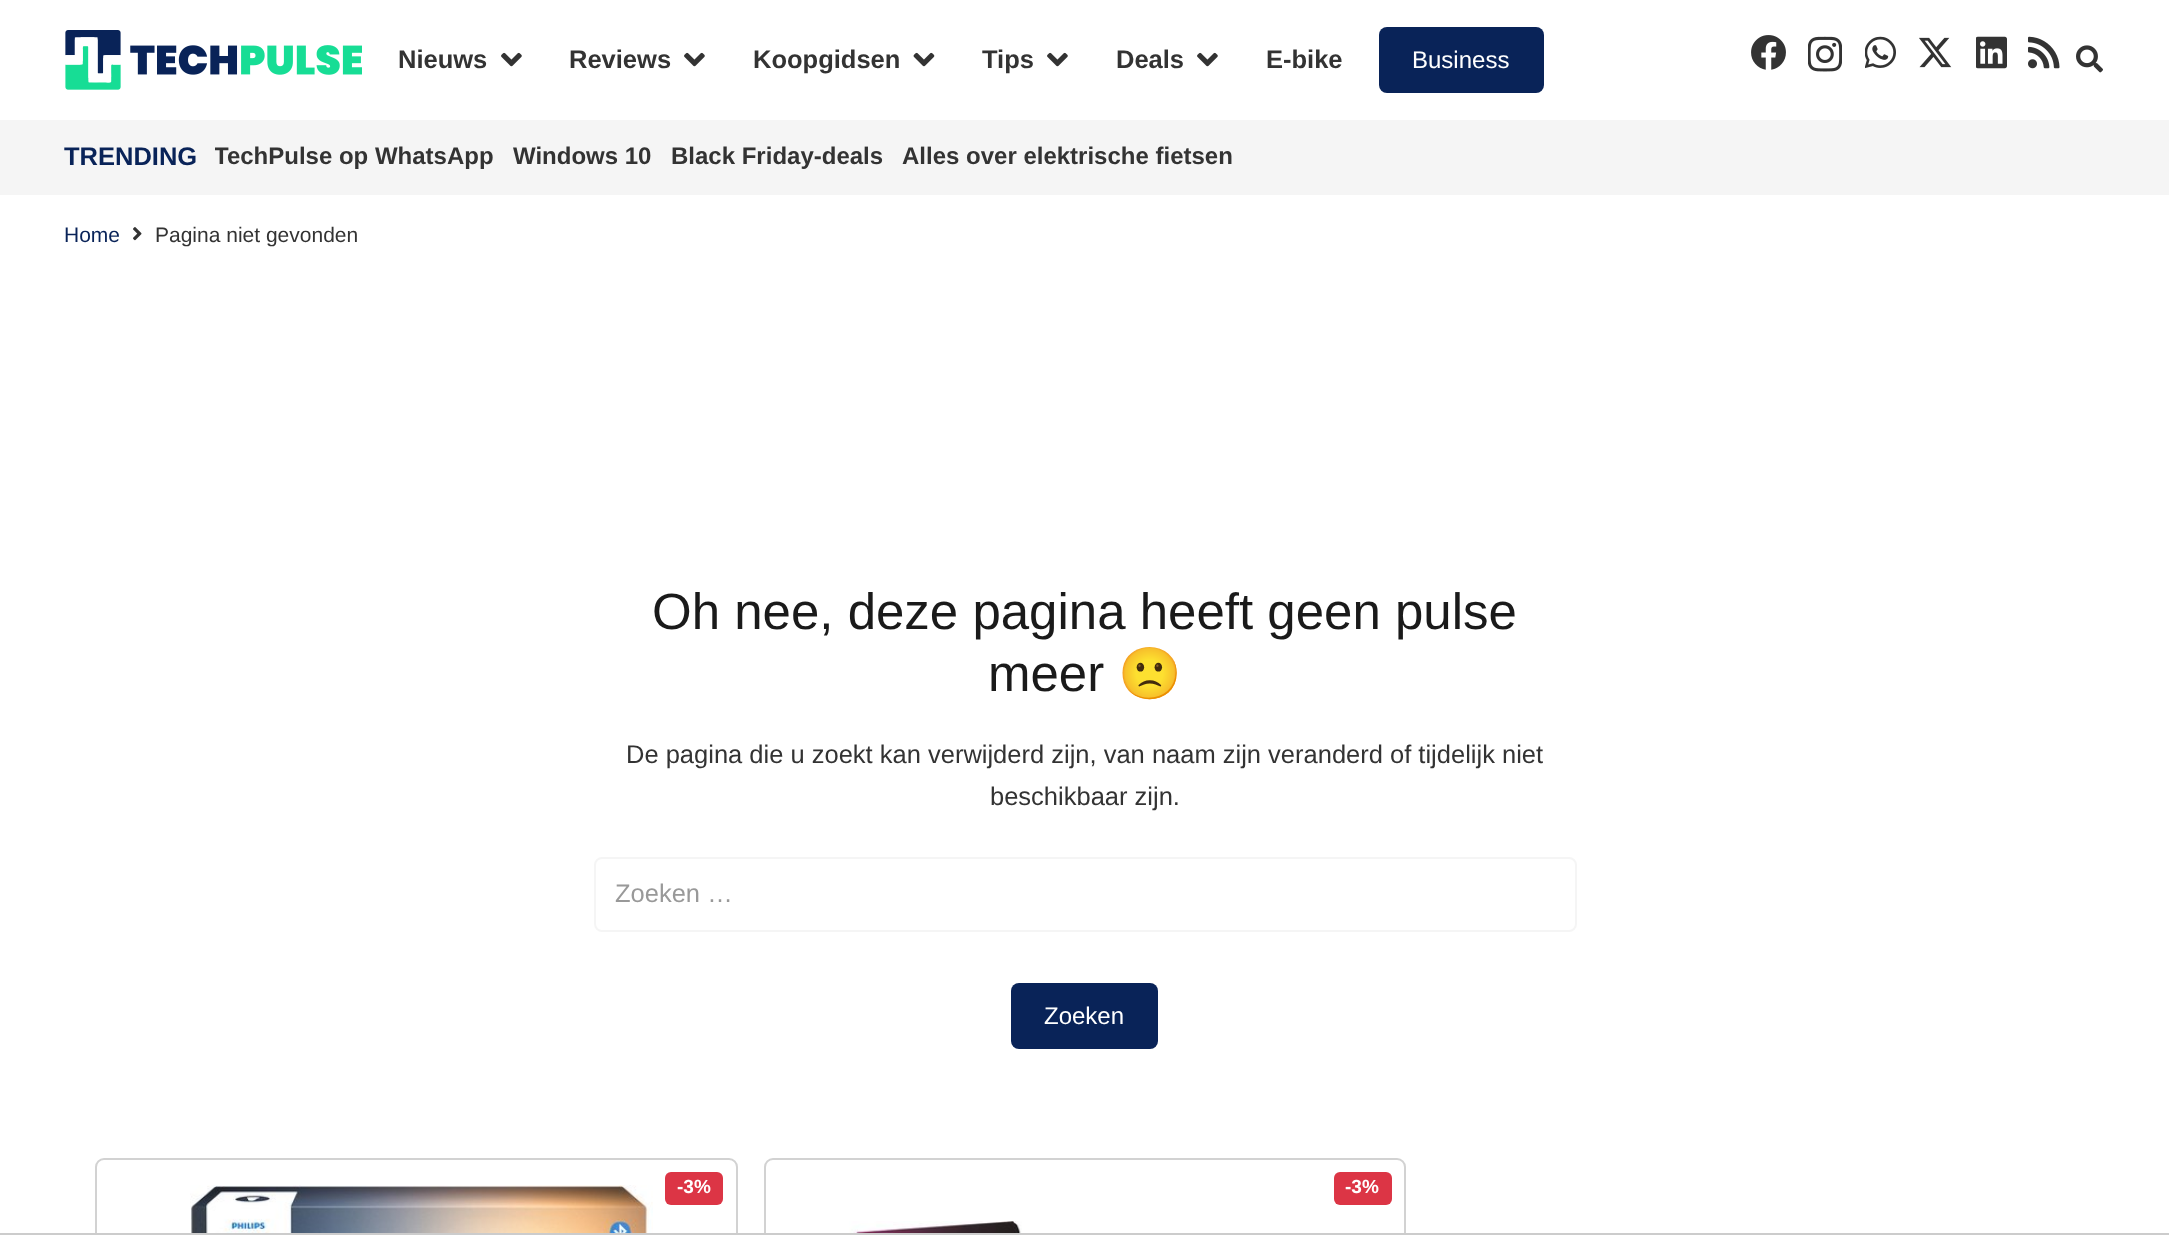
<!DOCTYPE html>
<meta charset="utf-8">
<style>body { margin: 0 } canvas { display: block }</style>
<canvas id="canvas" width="2169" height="1249"></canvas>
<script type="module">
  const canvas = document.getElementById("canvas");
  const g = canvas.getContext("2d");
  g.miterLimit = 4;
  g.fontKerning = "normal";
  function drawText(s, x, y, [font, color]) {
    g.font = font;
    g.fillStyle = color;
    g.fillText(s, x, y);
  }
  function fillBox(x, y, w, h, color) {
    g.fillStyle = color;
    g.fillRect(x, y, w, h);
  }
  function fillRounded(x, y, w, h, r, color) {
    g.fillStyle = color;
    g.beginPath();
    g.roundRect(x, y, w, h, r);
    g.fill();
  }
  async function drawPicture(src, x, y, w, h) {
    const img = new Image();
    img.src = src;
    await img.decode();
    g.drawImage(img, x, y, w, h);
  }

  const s1 = ["bold 25.5px Liberation Sans", "#333333"];
  const s2 = ["24px Liberation Sans", "#FFFFFF"];
  const s3 = ["bold 25.5px Liberation Sans", "#092358"];
  const s4 = ["bold 24px Liberation Sans", "#333333"];
  const s5 = ["21px Liberation Sans", "#092358"];
  const s6 = ["21px Liberation Sans", "#333333"];
  const s7 = ["51px Liberation Sans", "#1A1A1A"];
  const s8 = ["51px Noto Color Emoji", "#1A1A1A"];
  const s9 = ["25.5px Liberation Sans", "#333333"];
  const s10 = ["25.5px Liberation Sans", "#999999"];
  const s11 = ["bold 19px Liberation Sans", "#FFFFFF"];

  fillBox(0, 0, 2169, 1249, "#FFFFFF");
  await drawPicture("pic1.png", 65, 30, 297, 60);
  drawText("Nieuws", 398, 68, s1);
  await drawPicture("pic2.png", 501, 52, 21, 15);
  drawText("Reviews", 569, 68, s1);
  await drawPicture("pic2.png", 684, 52, 21, 15);
  drawText("Koopgidsen", 753, 68, s1);
  await drawPicture("pic3.png", 913, 52, 22, 15);
  drawText("Tips", 982, 68, s1);
  await drawPicture("pic2.png", 1047, 52, 21, 15);
  drawText("Deals", 1116, 68, s1);
  await drawPicture("pic2.png", 1197, 52, 21, 15);
  drawText("E-bike", 1266, 68, s1);
  fillRounded(1379, 27, 165, 66, 8, "#092358");
  drawText("Business", 1412, 68, s2);
  await drawPicture("pic4.png", 1751, 35, 35, 35);
  await drawPicture("pic5.png", 1808, 36, 34, 36);
  await drawPicture("pic6.png", 1865, 36, 31, 33);
  await drawPicture("pic7.png", 1919, 37, 33, 31);
  await drawPicture("pic8.png", 1976, 36, 31, 33);
  await drawPicture("pic9.png", 2028, 36, 32, 33);
  await drawPicture("pic10.png", 2076, 45, 27, 28);
  fillBox(0, 120, 2169, 75, "#F5F5F5");
  drawText("TRENDING", 64, 165, s3);
  g.save();
  g.beginPath();
  g.rect(215, 138, 1891, 39);
  g.clip();
  drawText("TechPulse op WhatsApp", 214, 164, s4);
  g.restore();
  drawText("Windows 10", 513, 164, s4);
  drawText("Black Friday-deals", 671, 164, s4);
  drawText("Alles over elektrische fietsen", 902, 164, s4);
  drawText("Home", 64, 242, s5);
  await drawPicture("pic11.png", 133, 227, 9, 14);
  drawText("Pagina niet gevonden", 155, 242, s6);
  drawText("Oh nee, deze pagina heeft geen pulse", 652, 629, s7);
  drawText("meer", 988, 691, s7);
  drawText("🙁", 1118, 691, s8);
  drawText("De pagina die u zoekt kan verwijderd zijn, van naam zijn veranderd of tijdelijk niet", 626, 763, s9);
  drawText("beschikbaar zijn.", 990, 805, s9);
  g.beginPath();
  g.roundRect(595, 858, 981, 73, 7);
  g.strokeStyle = "#F5F5F5";
  g.lineWidth = 2;
  g.stroke();
  drawText("Zoeken …", 615, 902, s10);
  fillRounded(1011, 983, 147, 66, 8, "#092358");
  drawText("Zoeken", 1044, 1024, s2);
  g.beginPath();
  g.roundRect(96, 1159, 641, 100, 8);
  g.strokeStyle = "#D2D2D2";
  g.stroke();
  await drawPicture("pic12.png", 190, 1185, 463, 48);
  fillRounded(665, 1172, 58, 33, 6, "#DC3545");
  drawText("-3%", 677, 1193, s11);
  g.beginPath();
  g.roundRect(765, 1159, 640, 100, 8);
  g.stroke();
  fillRounded(1334, 1172, 58, 33, 6, "#DC3545");
  drawText("-3%", 1345, 1193, s11);
  await drawPicture("pic13.png", 849, 1221, 173, 12);
  fillBox(95, 1235, 1311, 14, "#FFFFFF");
  fillBox(0, 1233, 2169, 2, "#CCCCCC");
</script>
